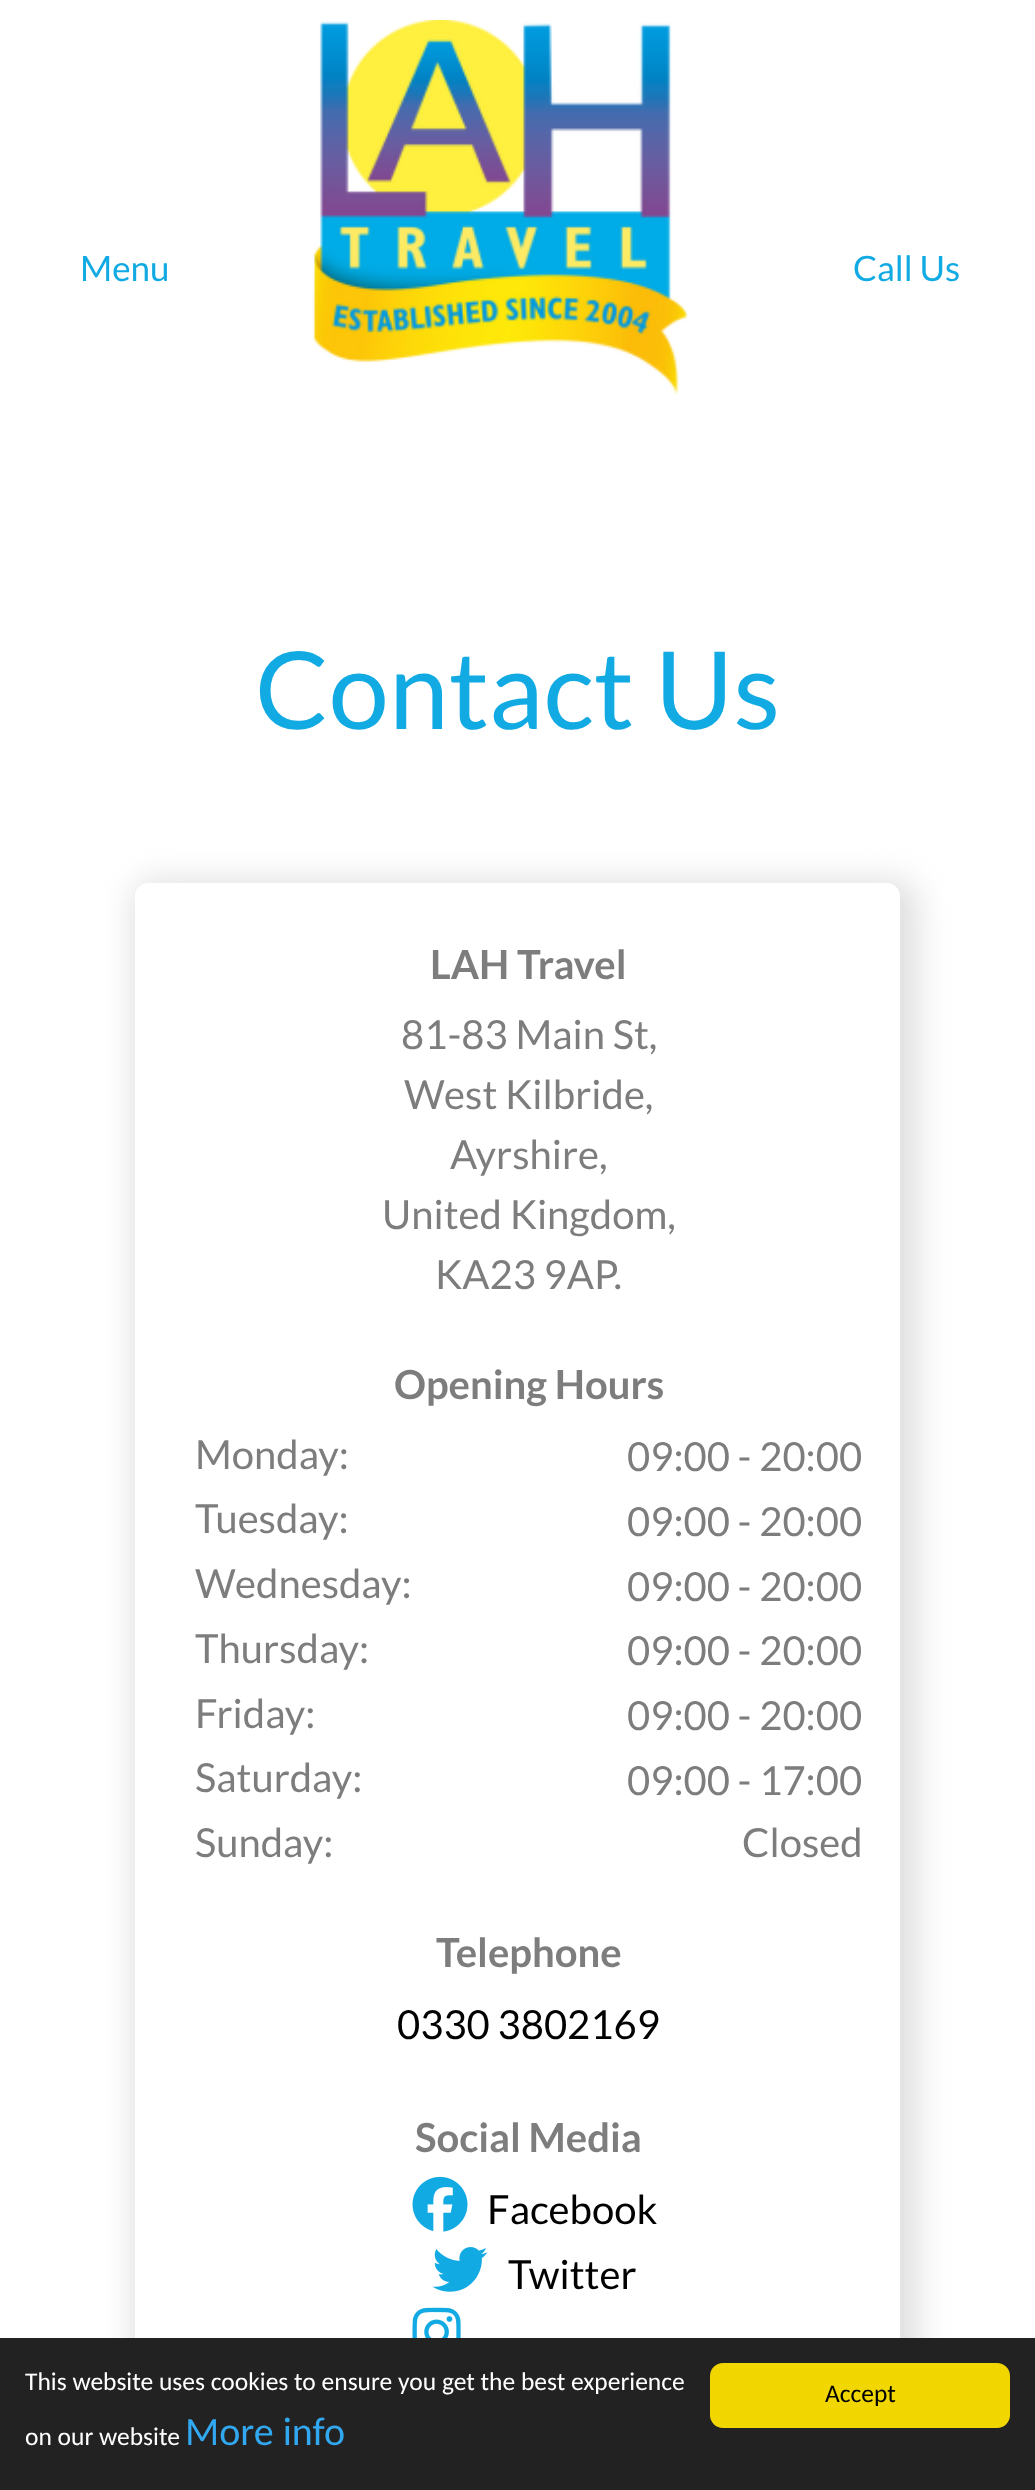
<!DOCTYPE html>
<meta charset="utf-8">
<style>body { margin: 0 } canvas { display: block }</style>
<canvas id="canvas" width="1035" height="2490"></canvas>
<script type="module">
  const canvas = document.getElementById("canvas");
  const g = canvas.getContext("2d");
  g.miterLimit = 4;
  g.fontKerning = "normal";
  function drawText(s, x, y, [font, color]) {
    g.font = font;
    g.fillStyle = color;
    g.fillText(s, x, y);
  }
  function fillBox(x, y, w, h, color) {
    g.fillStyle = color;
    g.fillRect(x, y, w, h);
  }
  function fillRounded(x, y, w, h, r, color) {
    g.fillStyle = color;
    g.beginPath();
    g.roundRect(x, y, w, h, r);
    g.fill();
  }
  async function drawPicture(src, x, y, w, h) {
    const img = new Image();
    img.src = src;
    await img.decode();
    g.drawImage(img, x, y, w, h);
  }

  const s1 = ["35px Lato", "#12AAE3"];
  const s2 = ["107.75px Lato", "#12AAE3"];
  const s3 = ["bold 40px Lato", "#7D7D7D"];
  const s4 = ["40px Lato", "#7D7D7D"];
  const s5 = ["40px Lato", "#000000"];
  const s6 = ["25.5px Carlito", "#FFFFFF"];
  const s7 = ["40px Carlito", "#31A8F0"];
  const s8 = ["25.5px Carlito", "#000000"];

  fillBox(0, 0, 1035, 2490, "#FFFFFF");
  drawText("Menu", 80, 281, s1);
  await drawPicture("pic1.png", 312, 20, 376, 375);
  drawText("Call Us", 853, 281, s1);
  drawText("Contact Us", 255, 729, s2);
  g.save();
  g.beginPath();
  g.moveTo(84, 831);
  g.lineTo(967, 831);
  g.lineTo(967, 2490);
  g.lineTo(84, 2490);
  g.closePath();
  g.moveTo(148, 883);
  g.lineTo(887, 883);
  g.bezierCurveTo(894, 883, 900, 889, 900, 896);
  g.lineTo(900, 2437);
  g.bezierCurveTo(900, 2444, 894, 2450, 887, 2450);
  g.lineTo(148, 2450);
  g.bezierCurveTo(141, 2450, 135, 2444, 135, 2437);
  g.lineTo(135, 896);
  g.bezierCurveTo(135, 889, 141, 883, 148, 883);
  g.closePath();
  g.clip("evenodd");
  g.fillStyle = "#DFDFDF";
  g.filter = "blur(16px)";
  g.beginPath();
  g.roundRect(133, 880, 785, 1588, 23);
  g.fill();
  g.filter = "none";
  g.restore();
  drawText("LAH Travel", 430, 979, s3);
  drawText("81-83 Main St,", 401, 1049, s4);
  drawText("West Kilbride,", 404, 1109, s4);
  drawText("Ayrshire,", 450, 1169, s4);
  drawText("United Kingdom,", 382, 1229, s4);
  drawText("KA23 9AP.", 435, 1289, s4);
  drawText("Opening Hours", 394, 1399, s3);
  drawText("Monday:", 195, 1469, s4);
  drawText("09:00 - 20:00", 627, 1471, s4);
  drawText("Tuesday:", 195, 1533, s4);
  drawText("09:00 - 20:00", 627, 1536, s4);
  drawText("Wednesday:", 195, 1598, s4);
  drawText("09:00 - 20:00", 627, 1601, s4);
  drawText("Thursday:", 195, 1663, s4);
  drawText("09:00 - 20:00", 627, 1665, s4);
  drawText("Friday:", 195, 1728, s4);
  drawText("09:00 - 20:00", 627, 1730, s4);
  drawText("Saturday:", 195, 1792, s4);
  drawText("09:00 - 17:00", 627, 1795, s4);
  drawText("Sunday:", 195, 1857, s4);
  drawText("Closed", 742, 1857, s4);
  drawText("Telephone", 436, 1967, s3);
  drawText("0330 3802169", 397, 2039, s5);
  drawText("Social Media", 415, 2152, s3);
  await drawPicture("pic2.png", 412, 2176, 56, 56);
  drawText("Facebook", 487, 2224, s5);
  await drawPicture("pic3.png", 432, 2247, 56, 45);
  drawText("Twitter", 508, 2289, s5);
  await drawPicture("pic4.png", 412, 2307, 49, 31);
  fillBox(0, 2338, 1035, 152, "#222222");
  drawText("This website uses cookies to ensure you get the best experience", 25, 2390, s6);
  drawText("on our website", 25, 2445, s6);
  drawText("More info", 185, 2445, s7);
  fillRounded(710, 2363, 300, 65, 13, "#F1D600");
  drawText("Accept", 825, 2402, s8);
</script>
